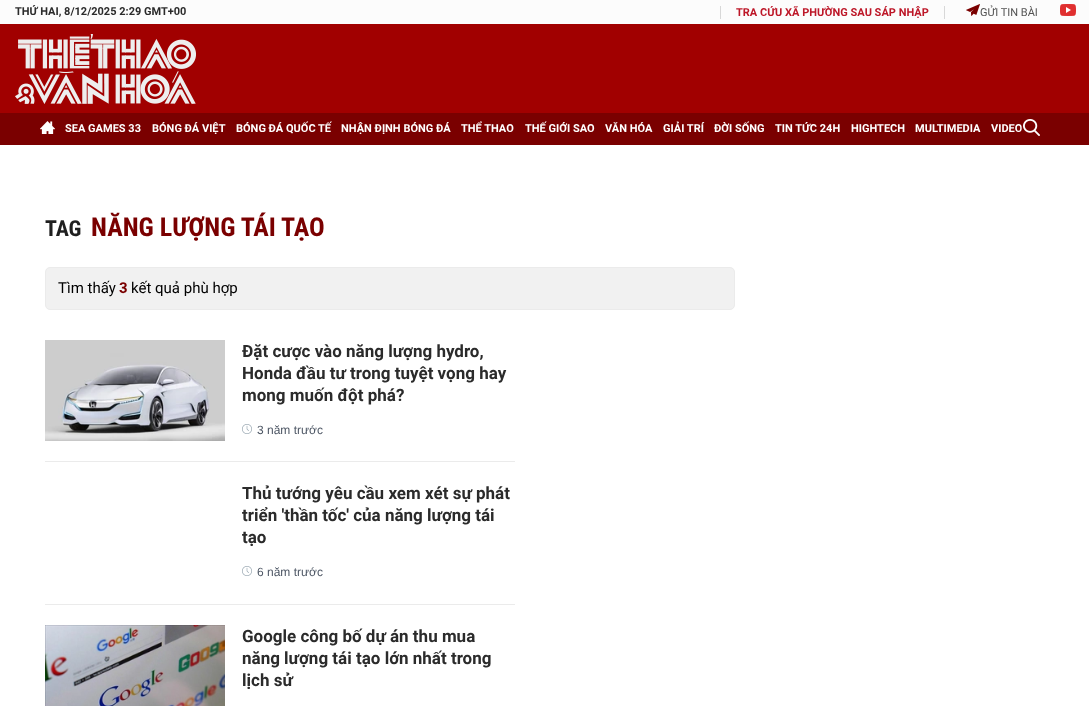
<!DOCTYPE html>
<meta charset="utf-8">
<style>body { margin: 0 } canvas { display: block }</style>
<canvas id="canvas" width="1089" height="706"></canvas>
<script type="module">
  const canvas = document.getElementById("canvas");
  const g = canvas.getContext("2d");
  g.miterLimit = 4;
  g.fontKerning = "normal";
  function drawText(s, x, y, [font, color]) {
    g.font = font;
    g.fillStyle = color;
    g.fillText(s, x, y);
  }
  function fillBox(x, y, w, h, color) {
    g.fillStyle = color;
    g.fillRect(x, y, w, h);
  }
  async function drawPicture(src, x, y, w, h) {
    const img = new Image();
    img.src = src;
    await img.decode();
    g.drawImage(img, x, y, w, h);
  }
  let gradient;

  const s1 = ["bold 11px Roboto", "#2B2B2B"];
  const s2 = ["bold 11px Roboto", "#BD1728"];
  const s3 = ["11px Roboto", "#525252"];
  const s4 = ["bold 11px Roboto", "#FFFFFF"];
  const s5 = ["bold 22px Roboto Condensed", "#1F1F1F"];
  const s6 = ["bold 26px Roboto Condensed", "#7A0000"];
  const s7 = ["15px Roboto", "#000000"];
  const s8 = ["bold 15px Roboto", "#7A0000"];
  const s9 = ["bold 17px Roboto", "#2B2B2B"];
  const s10 = ["12px Liberation Sans", "#4E5765"];

  fillBox(0, 0, 1089, 706, "#FFFFFF");
  fillBox(0, 0, 1089, 24, "#FCFCFC");
  drawText("THỨ HAI, 8/12/2025 2:29 GMT+00", 15, 15, s1);
  fillBox(944, 6, 1, 13, "#D8D8D8");
  fillBox(720, 6, 1, 13, "#D8D8D8");
  drawText("TRA CỨU XÃ PHƯỜNG SAU SÁP NHẬP", 736, 16, s2);
  await drawPicture("pic1.png", 966, 4, 14, 12);
  drawText("GỬI TIN BÀI", 980, 16, s3);
  await drawPicture("pic2.png", 1060, 4, 16, 12);
  fillBox(0, 24, 1089, 89, "#A10000");
  await drawPicture("pic3.png", 15, 34, 181, 70);
  fillBox(0, 113, 1089, 32, "#7A0000");
  await drawPicture("pic4.png", 40, 121, 15, 13);
  drawText("SEA GAMES 33", 65, 132, s4);
  drawText("BÓNG ĐÁ VIỆT", 152, 132, s4);
  drawText("BÓNG ĐÁ QUỐC TẾ", 236, 132, s4);
  drawText("NHẬN ĐỊNH BÓNG ĐÁ", 341, 132, s4);
  drawText("THỂ THAO", 461, 132, s4);
  drawText("THẾ GIỚI SAO", 525, 132, s4);
  drawText("VĂN HÓA", 605, 132, s4);
  drawText("GIẢI TRÍ", 663, 132, s4);
  drawText("ĐỜI SỐNG", 714, 132, s4);
  drawText("TIN TỨC 24H", 775, 132, s4);
  drawText("HIGHTECH", 851, 132, s4);
  drawText("MULTIMEDIA", 915, 132, s4);
  drawText("VIDEO", 991, 132, s4);
  gradient = g.createLinearGradient(1021, 129, 1046, 129);
  gradient.addColorStop(0, "rgba(122, 0, 0, 0)");
  gradient.addColorStop(0.1, "#7A0000");
  g.fillStyle = gradient;
  g.fillRect(1021, 125, 2, 6);
  await drawPicture("pic5.png", 1023, 119, 17, 17);
  drawText("TAG", 45, 236, s5);
  drawText("NĂNG LƯỢNG TÁI TẠO", 91, 236, s6);
  g.fillStyle = "#F1F1F1";
  g.beginPath();
  g.roundRect(45.5, 267.5, 689, 42, 4.5);
  g.fill();
  g.strokeStyle = "#EBEBEB";
  g.stroke();
  drawText("Tìm thấy", 58, 293, s7);
  drawText("3", 119, 293, s8);
  drawText("kết quả phù hợp", 131, 293, s7);
  fillBox(45, 461, 470, 1, "#EBEBEB");
  await drawPicture("pic6.png", 45, 340, 180, 101);
  drawText("Đặt cược vào năng lượng hydro,", 242, 357, s9);
  drawText("Honda đầu tư trong tuyệt vọng hay", 242, 379, s9);
  drawText("mong muốn đột phá?", 242, 401, s9);
  await drawPicture("pic7.png", 242, 424, 10, 10);
  drawText("3 năm trước", 257, 434, s10);
  fillBox(45, 604, 470, 1, "#EBEBEB");
  drawText("Thủ tướng yêu cầu xem xét sự phát", 242, 499, s9);
  drawText("triển 'thần tốc' của năng lượng tái", 242, 521, s9);
  drawText("tạo", 242, 543, s9);
  await drawPicture("pic7.png", 242, 566, 10, 10);
  drawText("6 năm trước", 257, 576, s10);
  await drawPicture("pic8.png", 45, 625, 180, 81);
  drawText("Google công bố dự án thu mua", 242, 642, s9);
  drawText("năng lượng tái tạo lớn nhất trong", 242, 664, s9);
  drawText("lịch sử", 242, 686, s9);
</script>
